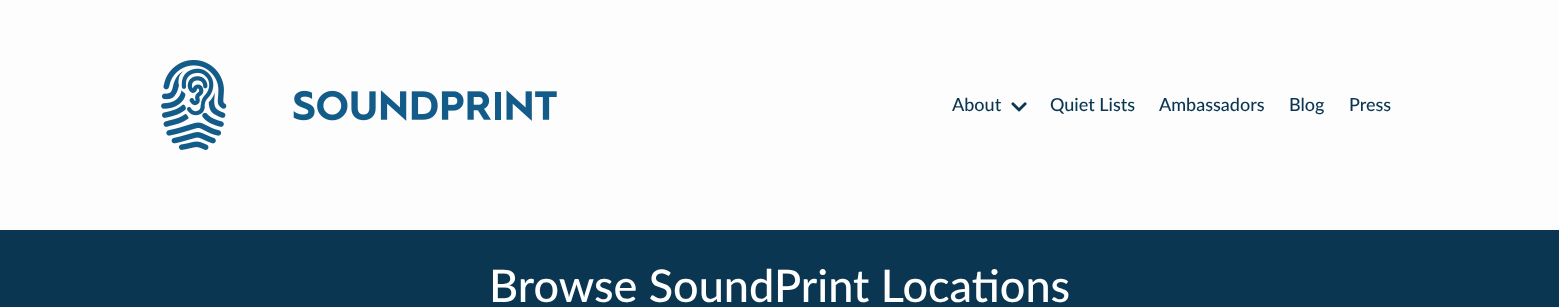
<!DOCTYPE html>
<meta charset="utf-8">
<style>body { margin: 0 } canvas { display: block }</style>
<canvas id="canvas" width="1559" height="307"></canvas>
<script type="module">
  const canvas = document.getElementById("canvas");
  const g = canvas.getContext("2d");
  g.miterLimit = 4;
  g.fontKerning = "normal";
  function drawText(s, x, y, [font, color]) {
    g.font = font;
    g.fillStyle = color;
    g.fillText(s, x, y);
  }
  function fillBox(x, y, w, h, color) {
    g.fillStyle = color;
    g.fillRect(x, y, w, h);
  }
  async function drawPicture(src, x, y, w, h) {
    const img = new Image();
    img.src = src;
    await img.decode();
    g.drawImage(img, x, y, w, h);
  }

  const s1 = ["500 18px Lato", "#0A3651"];
  const s2 = ["500 45px Lato", "#FFFFFF"];

  fillBox(0, 0, 1559, 307, "#FDFDFD");
  await drawPicture("pic1.png", 161, 60, 66, 90);
  await drawPicture("pic2.png", 293, 90, 264, 31);
  drawText("About", 952, 111, s1);
  await drawPicture("pic3.png", 1011, 102, 16, 10);
  drawText("Quiet Lists", 1050, 111, s1);
  drawText("Ambassadors", 1159, 111, s1);
  drawText("Blog", 1289, 111, s1);
  drawText("Press", 1349, 111, s1);
  fillBox(0, 230, 1559, 77, "#0A3651");
  drawText("Browse SoundPrint Locations", 489, 302, s2);
</script>
